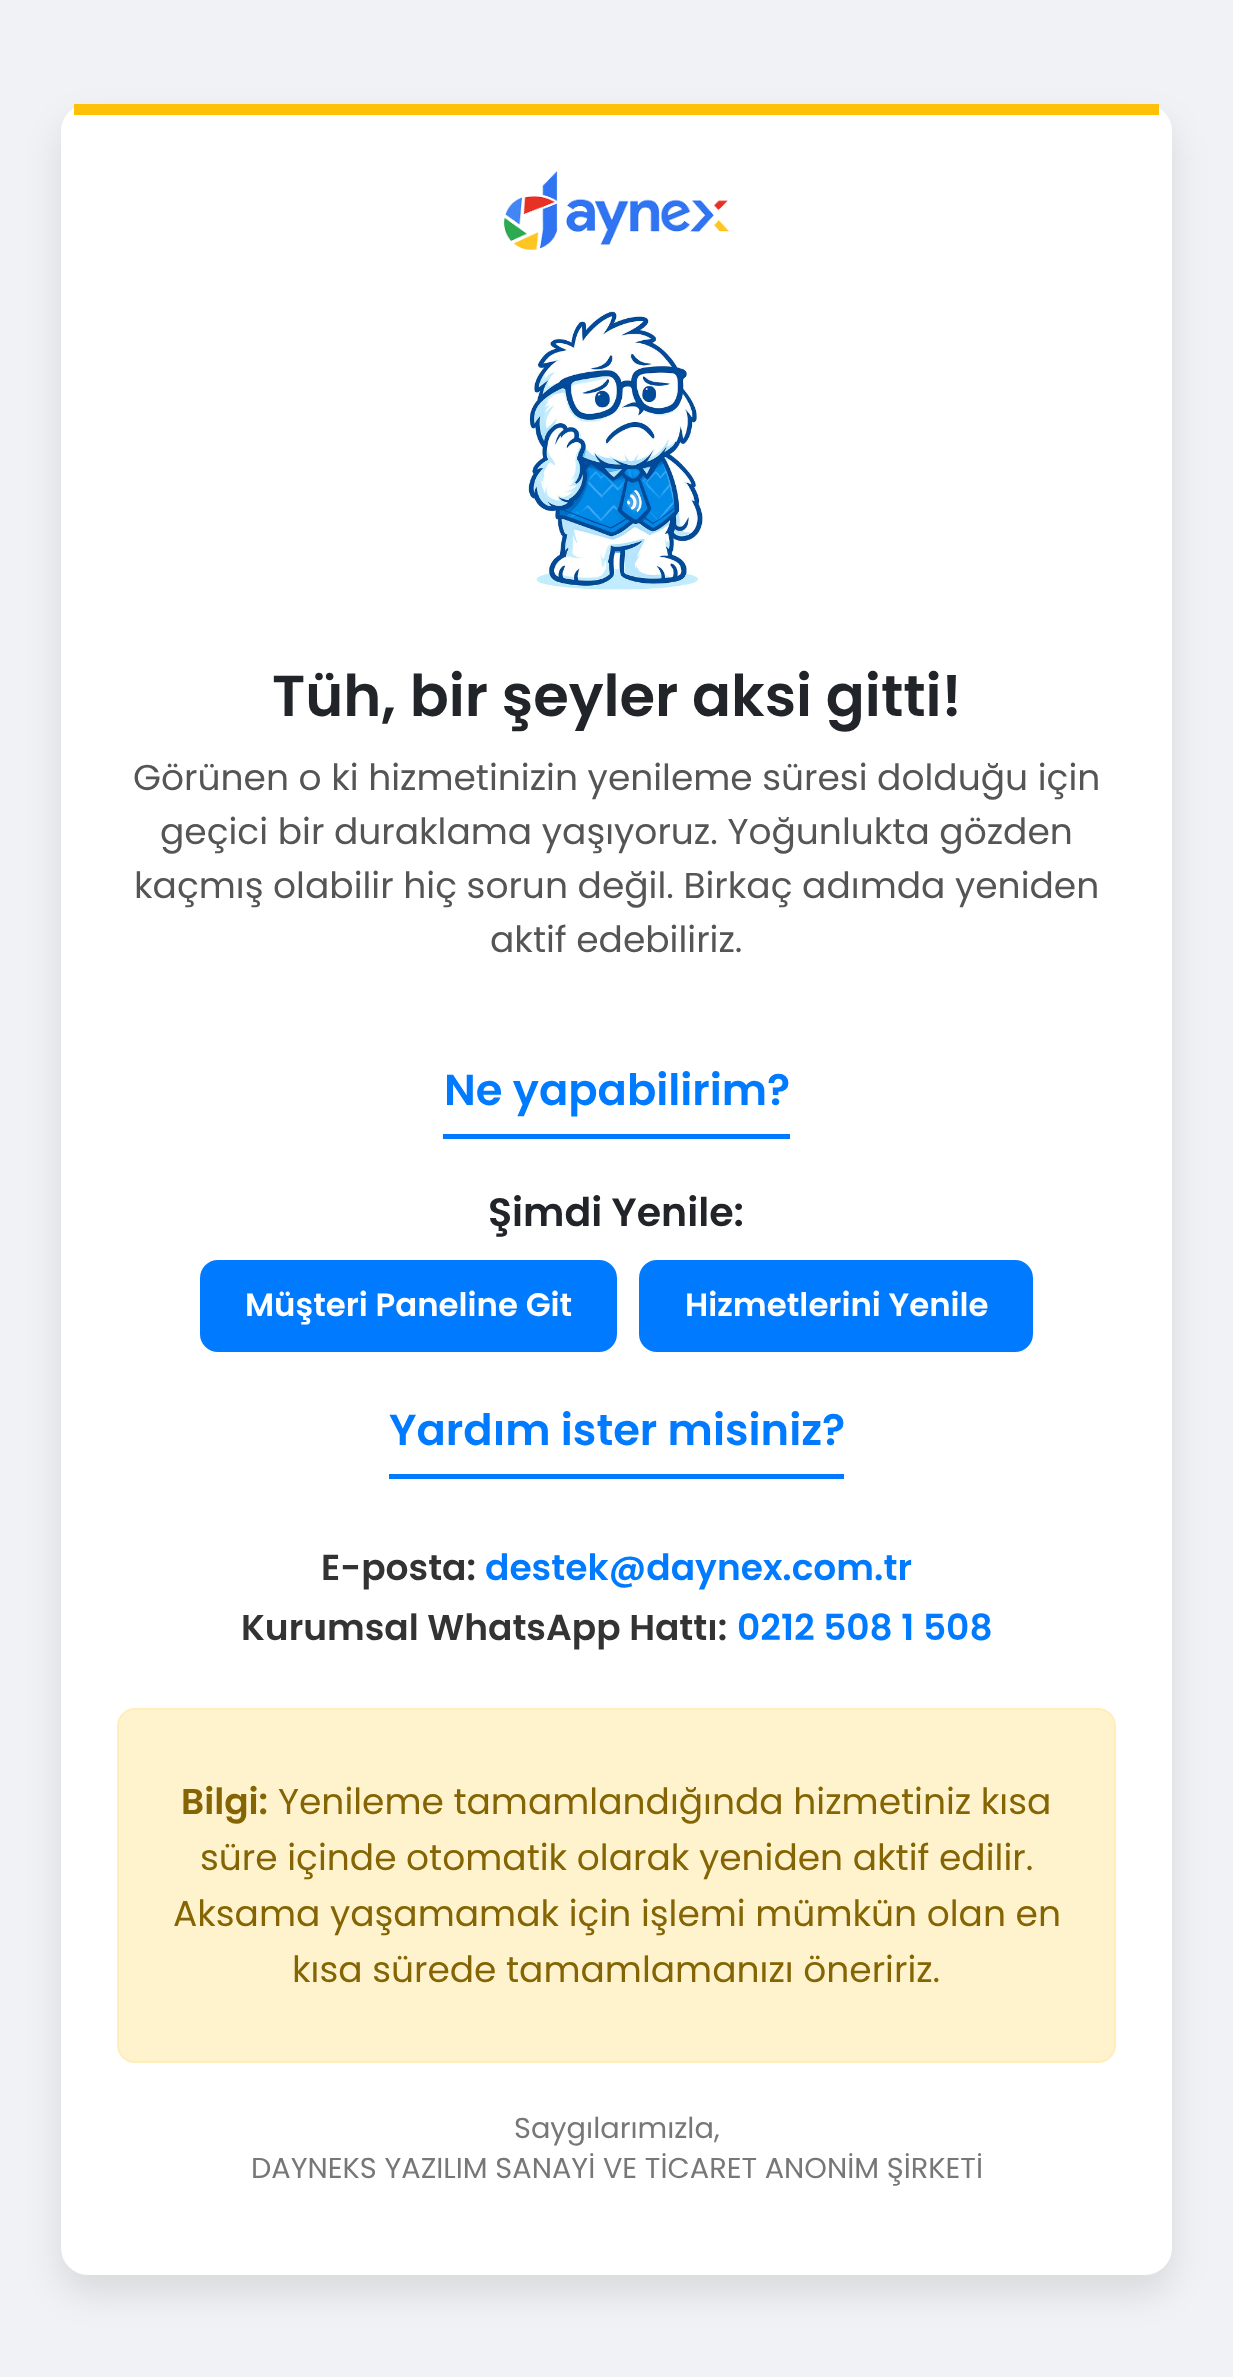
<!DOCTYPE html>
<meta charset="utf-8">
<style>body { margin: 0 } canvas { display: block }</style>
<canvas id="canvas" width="1233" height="2377"></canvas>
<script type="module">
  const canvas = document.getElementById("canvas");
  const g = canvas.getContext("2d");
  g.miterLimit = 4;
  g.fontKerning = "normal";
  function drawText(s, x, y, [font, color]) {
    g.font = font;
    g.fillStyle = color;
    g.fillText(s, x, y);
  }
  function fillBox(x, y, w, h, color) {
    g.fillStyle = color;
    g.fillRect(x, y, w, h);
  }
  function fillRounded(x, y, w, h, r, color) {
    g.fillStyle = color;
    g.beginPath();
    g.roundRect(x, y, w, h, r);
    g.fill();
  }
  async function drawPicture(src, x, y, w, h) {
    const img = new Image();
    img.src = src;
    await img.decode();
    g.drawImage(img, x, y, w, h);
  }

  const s1 = ["600 57.6px Poppins", "#212529"];
  const s2 = ["36px Poppins", "#555555"];
  const s3 = ["600 43.25px Poppins", "#007BFF"];
  const s4 = ["600 39.5px Poppins", "#212529"];
  const s5 = ["600 32.4px Poppins", "#FFFFFF"];
  const s6 = ["600 36px Poppins", "#333333"];
  const s7 = ["600 36px Poppins", "#007BFF"];
  const s8 = ["600 36px Poppins", "#856404"];
  const s9 = ["36px Poppins", "#856404"];
  const s10 = ["28.8px Poppins", "#777777"];

  fillBox(0, 0, 1233, 2377, "#F0F2F5");
  g.fillStyle = "rgba(0, 0, 0, 0.1)";
  g.filter = "blur(18px)";
  g.beginPath();
  g.roundRect(61, 122, 1111, 2171, 27);
  g.fill();
  g.filter = "none";
  fillRounded(61, 104, 1111, 2171, 27, "#FFFFFF");
  fillBox(74, 104, 1085, 11, "#FFC107");
  await drawPicture("pic1.png", 504, 171, 225, 79);
  await drawPicture("pic2.png", 528, 311, 175, 279);
  drawText("Tüh, bir şeyler aksi gitti!", 272, 716, s1);
  drawText("Görünen o ki hizmetinizin yenileme süresi dolduğu için", 133, 790, s2);
  drawText("geçici bir duraklama yaşıyoruz. Yoğunlukta gözden", 160, 844, s2);
  drawText("kaçmış olabilir hiç sorun değil. Birkaç adımda yeniden", 134, 898, s2);
  drawText("aktif edebiliriz.", 490, 952, s2);
  fillBox(443, 1134, 347, 5, "#007BFF");
  drawText("Ne yapabilirim?", 444, 1105, s3);
  drawText("Şimdi Yenile:", 488, 1226, s4);
  fillRounded(200, 1260, 417, 92, 18, "#007BFF");
  drawText("Müşteri Paneline Git", 245, 1316, s5);
  fillRounded(639, 1260, 394, 92, 18, "#007BFF");
  drawText("Hizmetlerini Yenile", 685, 1316, s5);
  fillBox(389, 1474, 455, 5, "#007BFF");
  drawText("Yardım ister misiniz?", 389, 1445, s3);
  drawText("E-posta:", 321, 1580, s6);
  drawText("destek@daynex.com.tr", 485, 1580, s7);
  drawText("Kurumsal WhatsApp Hattı:", 241, 1640, s6);
  drawText("0212 508 1 508", 737, 1640, s7);
  g.fillStyle = "#FFF3CD";
  g.beginPath();
  g.roundRect(118, 1709, 997, 353, 17);
  g.fill();
  g.strokeStyle = "#FFEEBA";
  g.lineWidth = 2;
  g.stroke();
  drawText("Bilgi:", 181, 1814, s8);
  drawText("Yenileme tamamlandığında hizmetiniz kısa", 278, 1814, s9);
  drawText("süre içinde otomatik olarak yeniden aktif edilir.", 200, 1870, s9);
  drawText("Aksama yaşamamak için işlemi mümkün olan en", 173, 1926, s9);
  drawText("kısa sürede tamamlamanızı öneririz.", 292, 1982, s9);
  drawText("Saygılarımızla,", 514, 2138, s10);
  drawText("DAYNEKS YAZILIM SANAYİ VE TİCARET ANONİM ŞİRKETİ", 251, 2178, s10);
</script>
